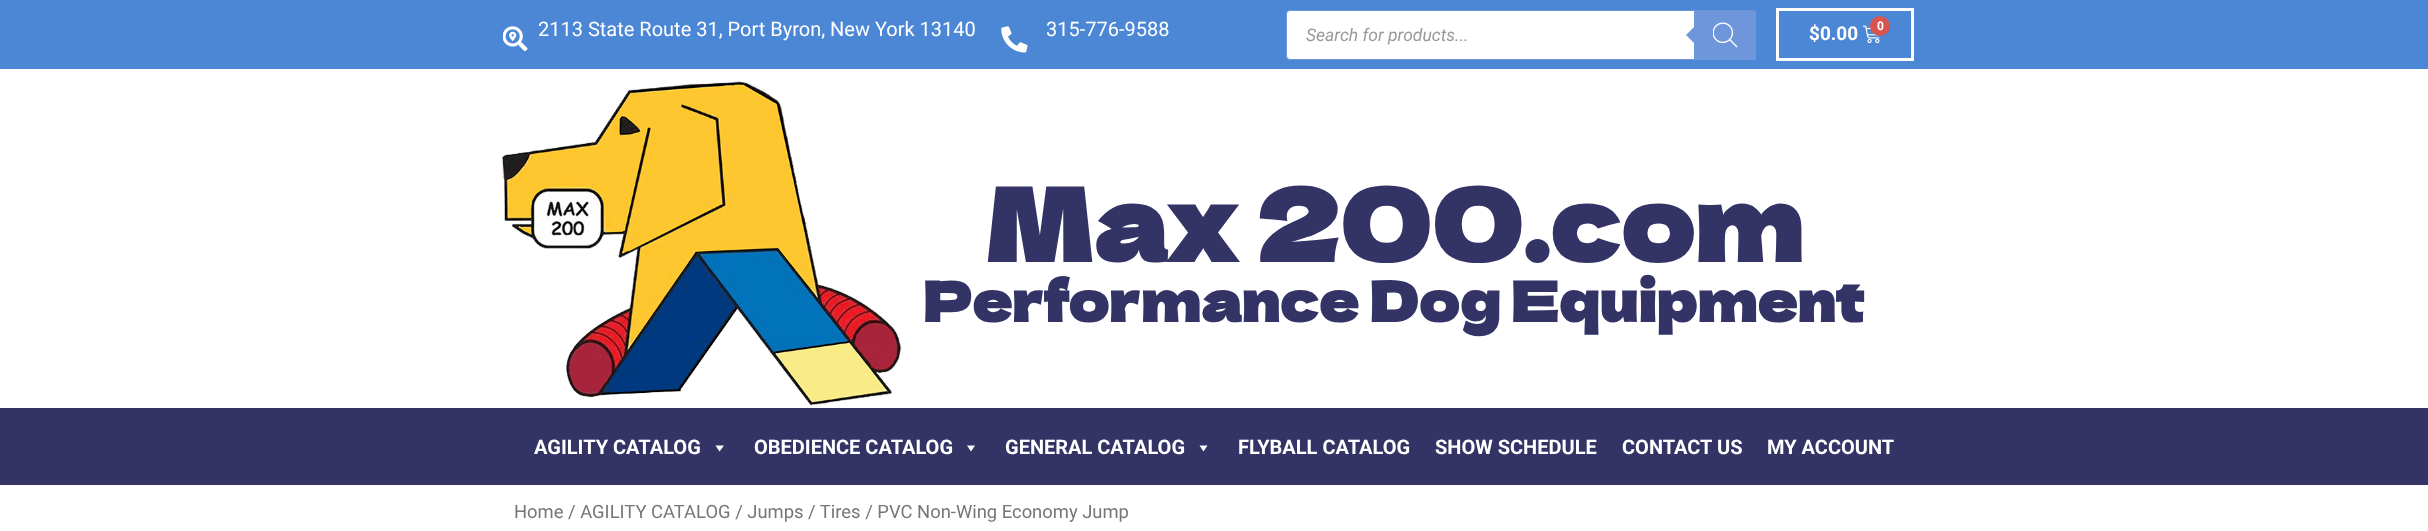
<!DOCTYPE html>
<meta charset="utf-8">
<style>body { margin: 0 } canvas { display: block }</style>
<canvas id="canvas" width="2428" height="531"></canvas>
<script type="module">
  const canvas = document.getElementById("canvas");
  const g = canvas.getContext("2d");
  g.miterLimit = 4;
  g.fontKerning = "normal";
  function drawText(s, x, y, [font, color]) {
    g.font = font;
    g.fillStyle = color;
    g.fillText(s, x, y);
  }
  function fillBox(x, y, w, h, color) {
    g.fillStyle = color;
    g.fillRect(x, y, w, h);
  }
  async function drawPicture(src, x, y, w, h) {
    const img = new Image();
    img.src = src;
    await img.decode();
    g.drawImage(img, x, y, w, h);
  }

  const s1 = ["20px Roboto", "#FFFFFF"];
  const s2 = ["italic 17.5px Roboto", "#999999"];
  const s3 = ["bold 19px Roboto", "#FFFFFF"];
  const s4 = ["bold 12px Roboto", "#FFFFFF"];
  const s5 = ["bold 100px Dela Gothic One", "#333366"];
  const s6 = ["bold 55px Dela Gothic One", "#333366"];
  const s7 = ["bold 20px Roboto", "#FFFFFF"];
  const s8 = ["18.4px Roboto", "#767676"];

  fillBox(0, 0, 2428, 531, "#FFFFFF");
  fillBox(0, 0, 2428, 69, "#4C87D5");
  await drawPicture("pic1.png", 503, 26, 25, 25);
  drawText("2113 State Route 31, Port Byron, New York 13140", 538, 36, s1);
  await drawPicture("pic2.png", 1001, 26, 27, 27);
  drawText("315-776-9588", 1046, 36, s1);
  g.beginPath();
  g.roundRect(1286.5, 10.5, 469, 49, 3.5);
  g.fill();
  g.strokeStyle = "#6E96DB";
  g.stroke();
  drawText("Search for products...", 1306, 41, s2);
  g.fillStyle = "#6E96DB";
  g.beginPath();
  g.roundRect(1694, 10, 62, 50, [0, 2.5, 2.5, 0]);
  g.fill();
  g.beginPath();
  g.moveTo(1696, 25);
  g.lineTo(1696, 45);
  g.lineTo(1686, 35);
  g.closePath();
  g.fill();
  await drawPicture("pic3.png", 1713, 22, 25, 26);
  g.strokeStyle = "#FFFFFF";
  g.lineWidth = 3;
  g.strokeRect(1777.5, 9.5, 135, 50);
  drawText("$0.00", 1809, 40, s3);
  await drawPicture("pic4.png", 1863, 25, 17, 19);
  g.fillStyle = "#D9534F";
  g.beginPath();
  g.arc(1880, 26, 10, 0, Math.PI * 2);
  g.fill();
  drawText("0", 1877, 30, s4);
  await drawPicture("pic5.png", 502, 81, 400, 325);
  drawText("Max 200.com", 984, 262, s5);
  drawText("Performance Dog Equipment", 923, 322, s6);
  fillBox(0, 408, 2428, 77, "#333366");
  drawText("AGILITY CATALOG", 534, 454, s7);
  g.beginPath();
  g.moveTo(724, 445.5);
  g.lineTo(719.5, 451.5);
  g.lineTo(715.5, 445.5);
  g.closePath();
  g.fill();
  drawText("OBEDIENCE CATALOG", 754, 454, s7);
  g.beginPath();
  g.moveTo(975, 445.5);
  g.lineTo(971, 451.5);
  g.lineTo(967, 445.5);
  g.closePath();
  g.fill();
  drawText("GENERAL CATALOG", 1005, 454, s7);
  g.beginPath();
  g.moveTo(1207.5, 445.5);
  g.lineTo(1203.5, 451.5);
  g.lineTo(1199.5, 445.5);
  g.closePath();
  g.fill();
  drawText("FLYBALL CATALOG", 1238, 454, s7);
  drawText("SHOW SCHEDULE", 1435, 454, s7);
  drawText("CONTACT US", 1622, 454, s7);
  drawText("MY ACCOUNT", 1767, 454, s7);
  drawText("Home / AGILITY CATALOG / Jumps / Tires / PVC Non-Wing Economy Jump", 514, 518, s8);
</script>
